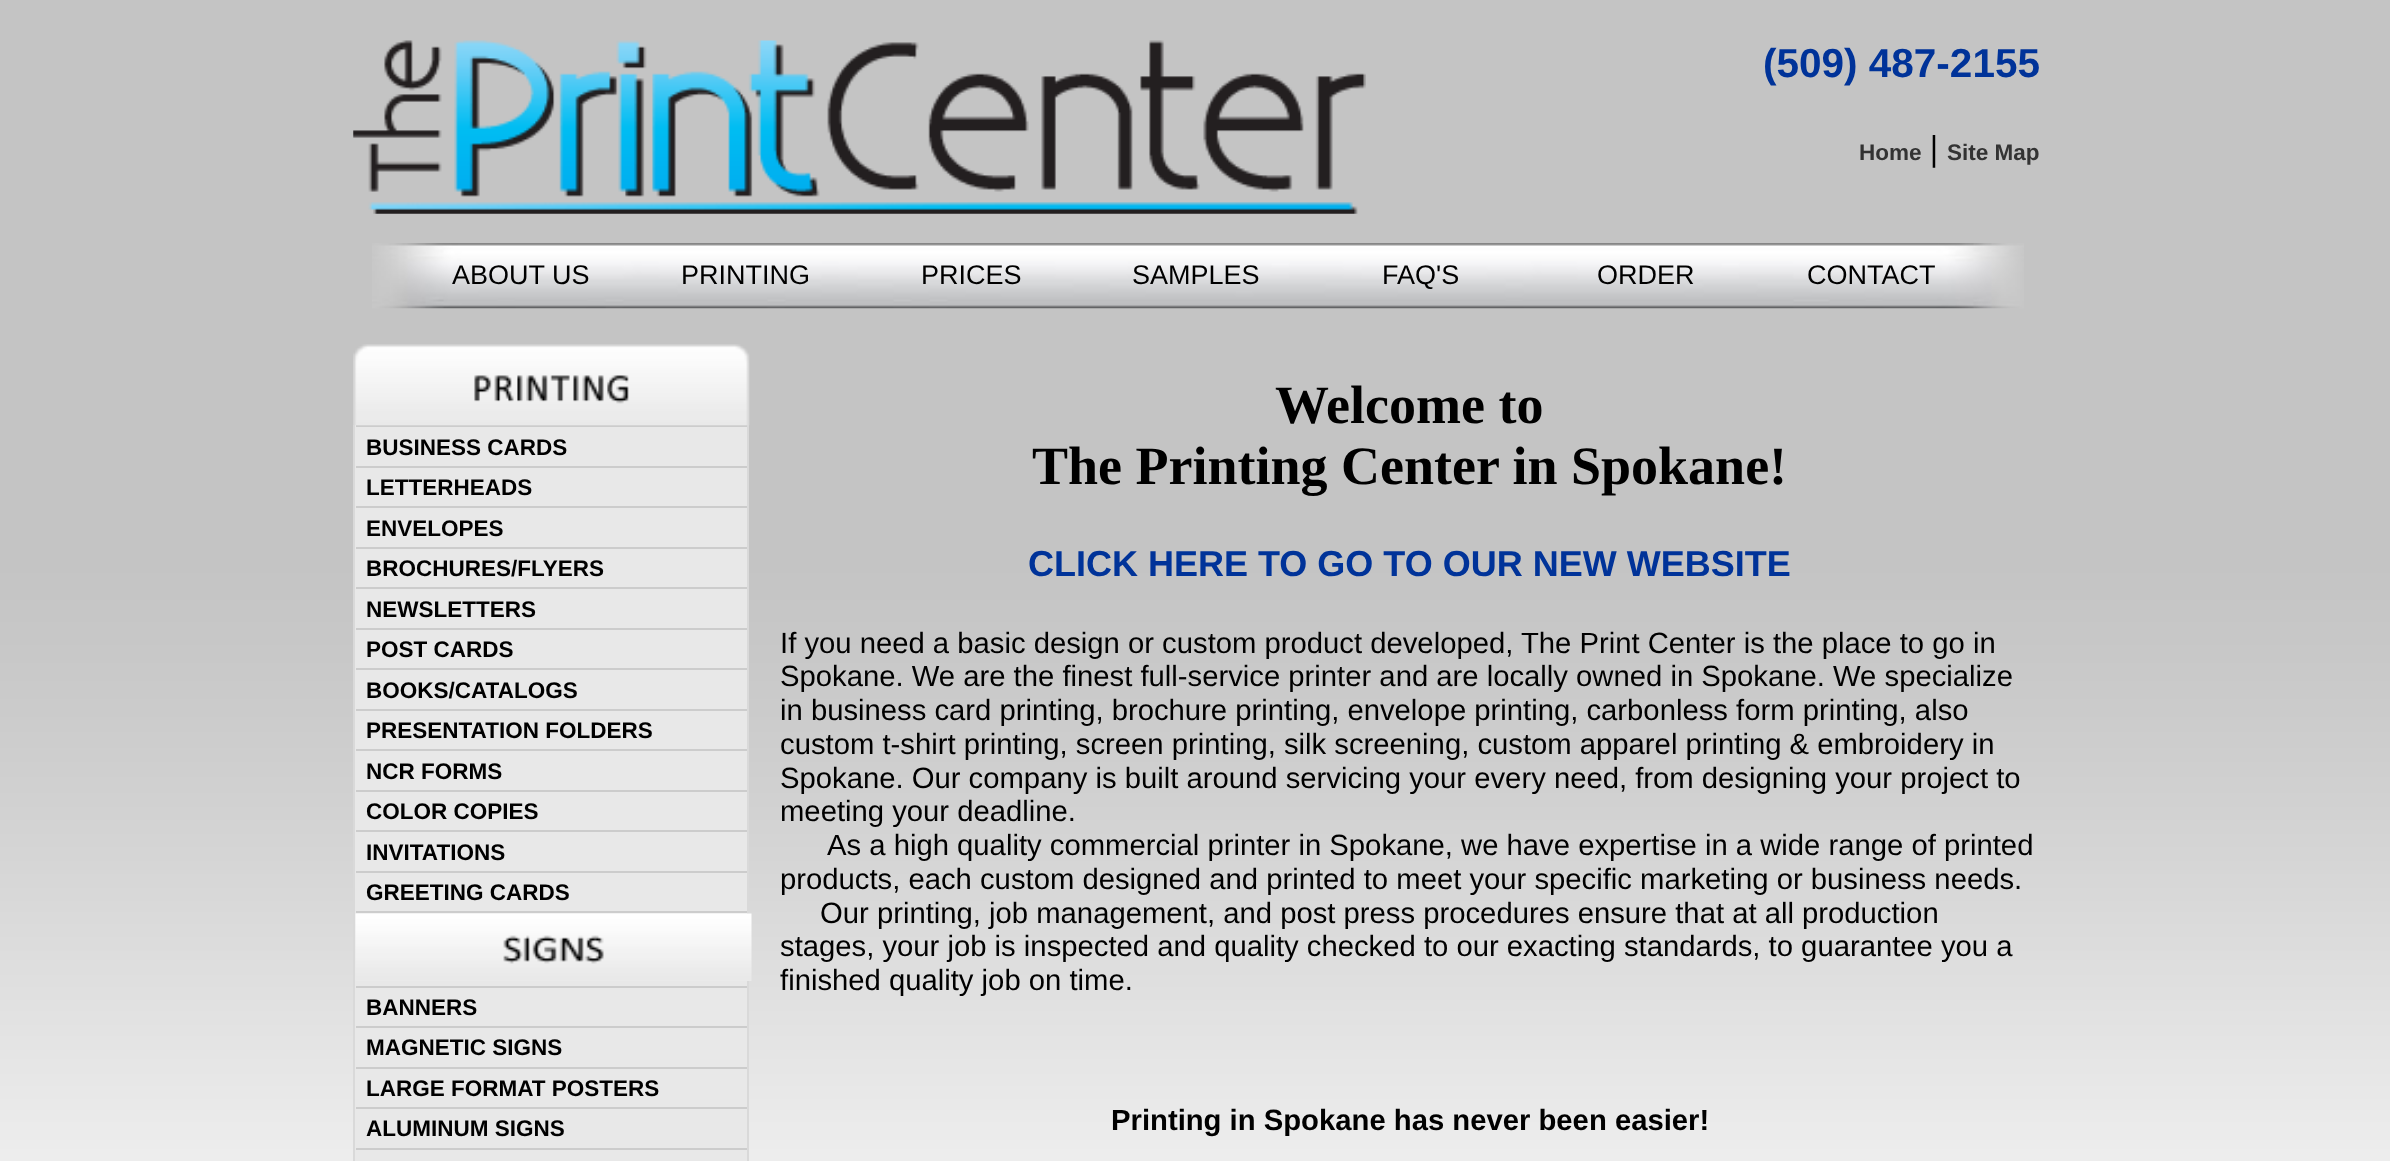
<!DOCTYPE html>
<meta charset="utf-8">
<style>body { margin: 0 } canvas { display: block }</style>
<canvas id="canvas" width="2390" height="1161"></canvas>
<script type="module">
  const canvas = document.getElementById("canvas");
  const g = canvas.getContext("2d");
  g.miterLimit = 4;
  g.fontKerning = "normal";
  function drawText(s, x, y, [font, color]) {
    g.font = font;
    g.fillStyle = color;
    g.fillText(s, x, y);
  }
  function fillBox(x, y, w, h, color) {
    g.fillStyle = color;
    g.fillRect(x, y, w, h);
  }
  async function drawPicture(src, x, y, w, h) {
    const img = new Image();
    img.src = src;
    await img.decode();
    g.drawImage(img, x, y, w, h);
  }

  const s1 = ["bold 40.5px Liberation Sans", "#003399"];
  const s2 = ["bold 22.5px Liberation Sans", "#333333"];
  const s3 = ["bold 36px Liberation Serif", "#000000"];
  const s4 = ["27px Liberation Sans", "#000000"];
  const s5 = ["bold 22.5px Liberation Sans", "#000000"];
  const s6 = ["bold 54px Liberation Serif", "#000000"];
  const s7 = ["bold 36px Liberation Sans", "#003399"];
  const s8 = ["29.25px Liberation Sans", "#000000"];
  const s9 = ["bold 29.25px Liberation Sans", "#000000"];

  fillBox(0, 0, 2390, 1161, "#FFFFFF");
  await drawPicture("pic1.png", 0, 0, 2390, 1161);
  await drawPicture("pic2.png", 353, 40, 1013, 174);
  drawText("(509) 487-2155", 1763, 77, s1);
  drawText("Home", 1859, 160, s2);
  drawText("|", 1930, 160, s3);
  drawText("Site Map", 1947, 160, s2);
  await drawPicture("pic3.png", 372, 243, 1652, 66);
  drawText("ABOUT US", 452, 284, s4);
  drawText("PRINTING", 681, 284, s4);
  drawText("PRICES", 921, 284, s4);
  drawText("SAMPLES", 1132, 284, s4);
  drawText("FAQ'S", 1382, 284, s4);
  drawText("ORDER", 1597, 284, s4);
  drawText("CONTACT", 1807, 284, s4);
  fillBox(355, 425, 392, 736, "#E8E8E8");
  fillBox(747, 425, 2, 736, "#D9D9D9");
  fillBox(353, 425, 2, 736, "#D9D9D9");
  fillBox(356, 425, 391, 2, "#CCCCCC");
  await drawPicture("pic4.png", 353, 344, 397, 82);
  fillBox(356, 466, 391, 2, "#CCCCCC");
  drawText("BUSINESS CARDS", 366, 455, s5);
  fillBox(356, 506, 391, 2, "#CCCCCC");
  drawText("LETTERHEADS", 366, 495, s5);
  fillBox(356, 547, 391, 2, "#CCCCCC");
  drawText("ENVELOPES", 366, 536, s5);
  fillBox(356, 587, 391, 2, "#CCCCCC");
  drawText("BROCHURES/FLYERS", 366, 576, s5);
  fillBox(356, 628, 391, 2, "#CCCCCC");
  drawText("NEWSLETTERS", 366, 617, s5);
  fillBox(356, 668, 391, 2, "#CCCCCC");
  drawText("POST CARDS", 366, 657, s5);
  fillBox(356, 709, 391, 2, "#CCCCCC");
  drawText("BOOKS/CATALOGS", 366, 698, s5);
  fillBox(356, 749, 391, 2, "#CCCCCC");
  drawText("PRESENTATION FOLDERS", 366, 738, s5);
  fillBox(356, 790, 391, 2, "#CCCCCC");
  drawText("NCR FORMS", 366, 779, s5);
  fillBox(356, 830, 391, 2, "#CCCCCC");
  drawText("COLOR COPIES", 366, 819, s5);
  fillBox(356, 871, 391, 2, "#CCCCCC");
  drawText("INVITATIONS", 366, 860, s5);
  fillBox(356, 911, 391, 2, "#CCCCCC");
  drawText("GREETING CARDS", 366, 900, s5);
  fillBox(356, 986, 391, 2, "#CCCCCC");
  await drawPicture("pic5.png", 355, 913, 397, 68);
  fillBox(356, 1026, 391, 2, "#CCCCCC");
  drawText("BANNERS", 366, 1015, s5);
  fillBox(356, 1067, 391, 2, "#CCCCCC");
  drawText("MAGNETIC SIGNS", 366, 1055, s5);
  fillBox(356, 1107, 391, 2, "#CCCCCC");
  drawText("LARGE FORMAT POSTERS", 366, 1096, s5);
  fillBox(356, 1148, 391, 2, "#CCCCCC");
  drawText("ALUMINUM SIGNS", 366, 1136, s5);
  drawText("Welcome to", 1275, 423, s6);
  drawText("The Printing Center in Spokane!", 1032, 484, s6);
  drawText("CLICK HERE TO GO TO OUR NEW WEBSITE", 1028, 576, s7);
  drawText("If you need a basic design or custom product developed, The Print Center is the place to go in", 780, 653, s8);
  drawText("Spokane. We are the finest full-service printer and are locally owned in Spokane. We specialize", 780, 686, s8);
  drawText("in business card printing, brochure printing, envelope printing, carbonless form printing, also", 780, 720, s8);
  drawText("custom t-shirt printing, screen printing, silk screening, custom apparel printing & embroidery in", 780, 754, s8);
  drawText("Spokane. Our company is built around servicing your every need, from designing your project to", 780, 788, s8);
  drawText("meeting your deadline.", 780, 821, s8);
  drawText("As a high quality commercial printer in Spokane, we have expertise in a wide range of printed", 827, 855, s8);
  drawText("products, each custom designed and printed to meet your specific marketing or business needs.", 780, 889, s8);
  drawText("Our printing, job management, and post press procedures ensure that at all production", 820, 923, s8);
  drawText("stages, your job is inspected and quality checked to our exacting standards, to guarantee you a", 780, 956, s8);
  drawText("finished quality job on time.", 780, 990, s8);
  drawText("Printing in Spokane has never been easier!", 1111, 1130, s9);
</script>
